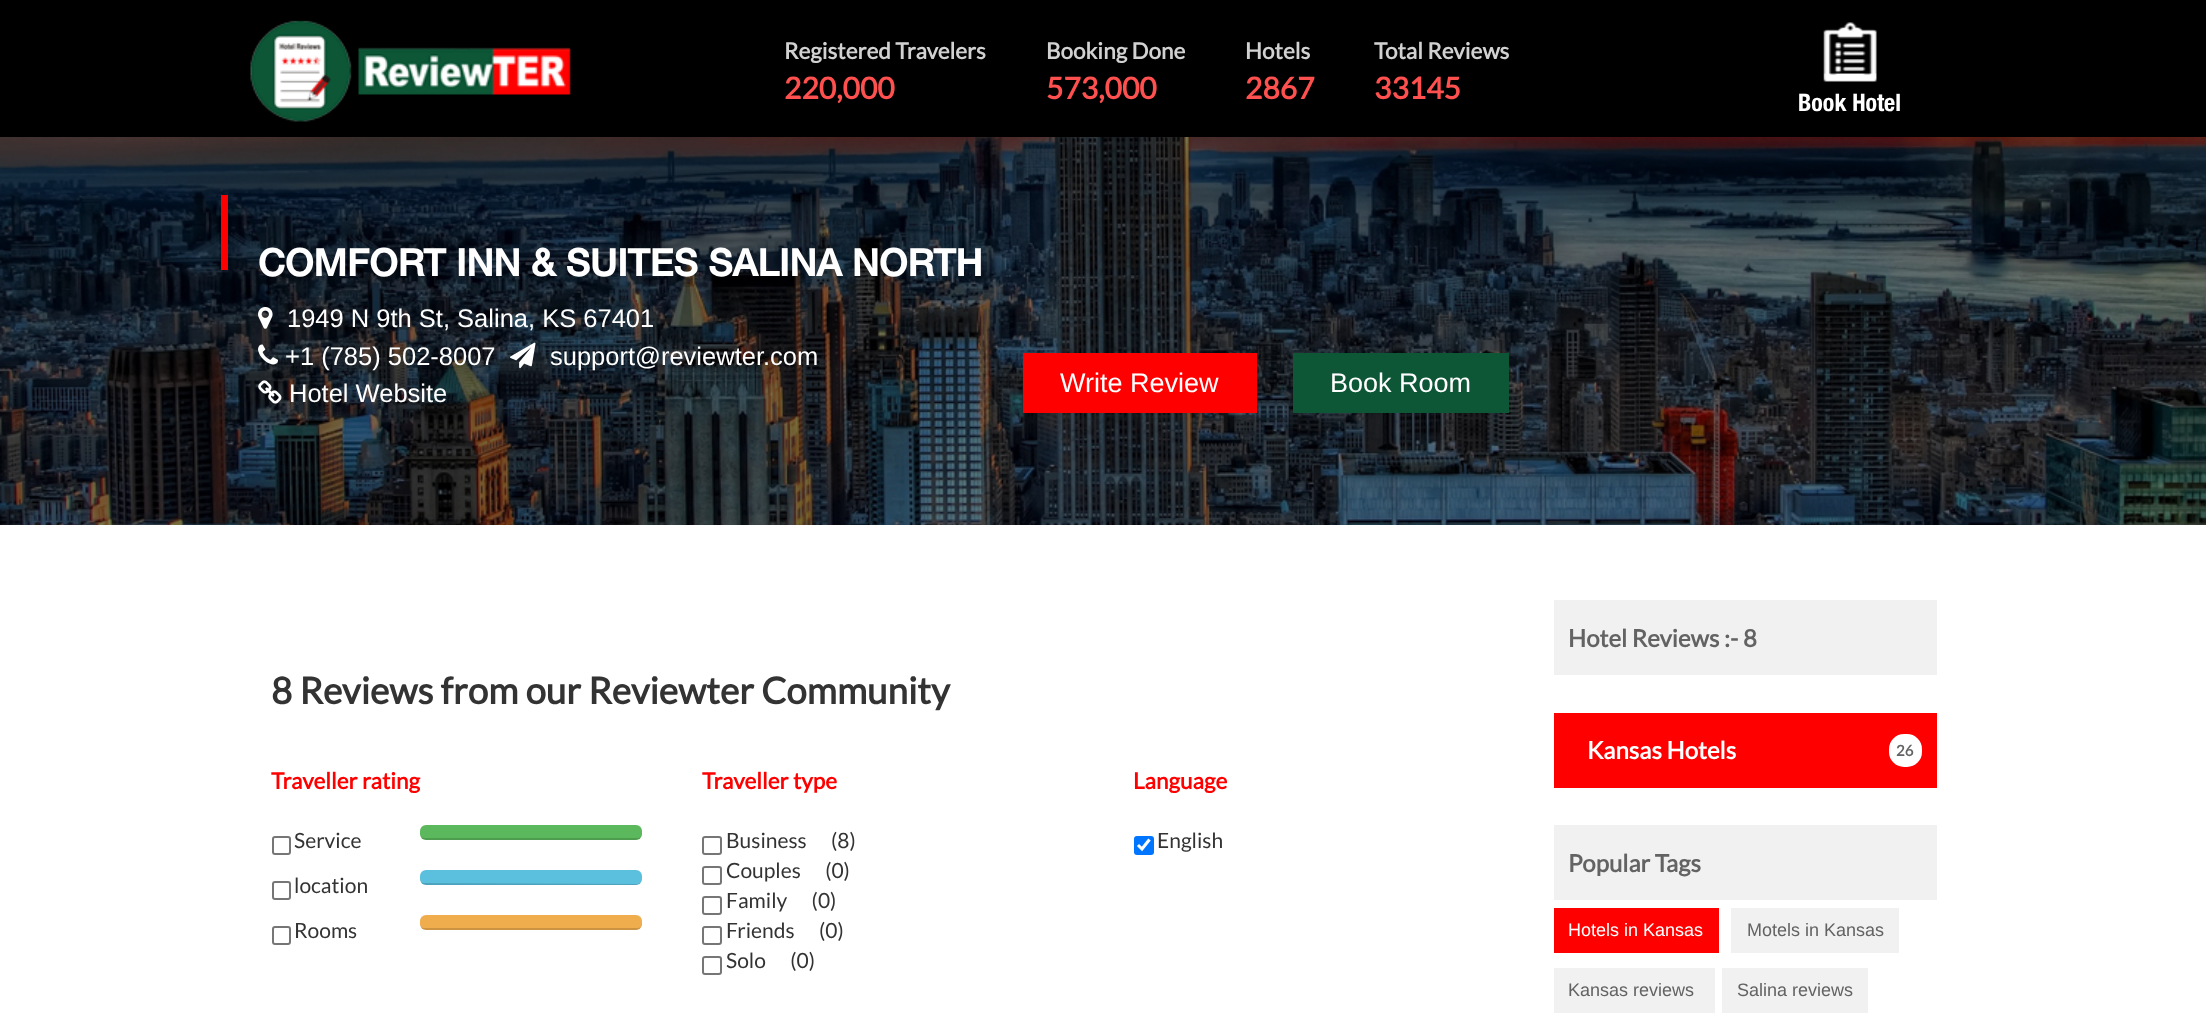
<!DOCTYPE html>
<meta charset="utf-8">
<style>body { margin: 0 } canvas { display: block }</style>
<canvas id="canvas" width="2206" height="1019"></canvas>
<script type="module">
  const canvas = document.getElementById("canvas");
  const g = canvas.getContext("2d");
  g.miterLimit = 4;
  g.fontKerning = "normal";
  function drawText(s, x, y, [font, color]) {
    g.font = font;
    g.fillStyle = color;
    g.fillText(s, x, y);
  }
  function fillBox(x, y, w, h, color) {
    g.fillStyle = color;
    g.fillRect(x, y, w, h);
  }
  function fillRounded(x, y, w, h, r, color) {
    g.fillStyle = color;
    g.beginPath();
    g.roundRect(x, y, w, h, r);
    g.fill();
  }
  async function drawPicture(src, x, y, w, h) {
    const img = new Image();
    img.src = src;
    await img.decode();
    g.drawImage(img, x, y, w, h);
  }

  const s1 = ["bold 22.5px Lato", "#D1D1D1"];
  const s2 = ["bold 30px Lato", "#FF5050"];
  const s3 = ["bold 24px 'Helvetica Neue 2'", "#FFFFFF"];
  const s4 = ["bold 37.5px Helvetica Neue", "#FFFFFF"];
  const s5 = ["25.5px Liberation Sans", "#FFFFFF"];
  const s6 = ["27px Liberation Sans", "#FFFFFF"];
  const s7 = ["bold 36.75px Lato", "#333333"];
  const s8 = ["bold 22.5px Lato", "#FE0000"];
  const s9 = ["21px Lato", "#333333"];
  const s10 = ["bold 24px Lato", "#636363"];
  const s11 = ["bold 24px Lato", "#FFFFFF"];
  const s12 = ["bold 15px Lato", "#636363"];
  const s13 = ["18px Liberation Sans", "#FFFFFF"];
  const s14 = ["18px Liberation Sans", "#636363"];

  fillBox(0, 0, 2206, 1019, "#FFFFFF");
  fillBox(0, 0, 2206, 137, "#000000");
  await drawPicture("pic1.png", 250, 20, 321, 102);
  drawText("Registered Travelers", 784, 59, s1);
  drawText("220,000", 784, 99, s2);
  drawText("Booking Done", 1046, 59, s1);
  drawText("573,000", 1046, 99, s2);
  drawText("Hotels", 1245, 59, s1);
  drawText("2867", 1245, 99, s2);
  drawText("Total Reviews", 1374, 59, s1);
  drawText("33145", 1374, 99, s2);
  await drawPicture("pic2.png", 1823, 22, 54, 60);
  drawText("Book Hotel", 1798, 111, s3);
  await drawPicture("pic3.png", 0, 137, 2206, 388);
  fillBox(221, 195, 7, 75, "#FE0000");
  drawText("COMFORT INN & SUITES SALINA NORTH", 258, 276, s4);
  await drawPicture("pic4.png", 258, 307, 15, 22);
  drawText("1949 N 9th St, Salina, KS 67401", 287, 327, s5);
  await drawPicture("pic5.png", 258, 344, 20, 21);
  drawText("+1 (785) 502-8007", 285, 365, s5);
  await drawPicture("pic6.png", 510, 342, 26, 27);
  drawText("support@reviewter.com", 550, 365, s5);
  await drawPicture("pic7.png", 258, 380, 24, 24);
  drawText("Hotel Website", 289, 402, s5);
  fillBox(1023, 353, 234, 60, "#FE0000");
  drawText("Write Review", 1060, 392, s6);
  fillBox(1293, 353, 216, 60, "#0D5737");
  drawText("Book Room", 1330, 392, s6);
  drawText("8 Reviews from our Reviewter Community", 271, 704, s7);
  drawText("Traveller rating", 271, 789, s8);
  g.beginPath();
  g.roundRect(273, 837, 17, 17, 2);
  g.strokeStyle = "#767676";
  g.lineWidth = 2;
  g.stroke();
  drawText("Service", 294, 848, s9);
  fillRounded(420, 825, 222, 15, 6, "#5CB85C");
  g.fillStyle = "rgba(0, 0, 0, 0.15)";
  g.beginPath();
  g.moveTo(420, 831);
  g.lineTo(420, 834);
  g.bezierCurveTo(420, 837, 423, 840, 426, 840);
  g.lineTo(636, 840);
  g.bezierCurveTo(639, 840, 642, 837, 642, 834);
  g.lineTo(642, 832);
  g.bezierCurveTo(642, 835, 641, 838, 638, 838);
  g.lineTo(424, 838);
  g.bezierCurveTo(420, 838, 420, 834, 420, 831);
  g.closePath();
  g.fill();
  g.beginPath();
  g.roundRect(273, 882, 17, 17, 2);
  g.stroke();
  drawText("location", 294, 893, s9);
  fillRounded(420, 870, 222, 15, 6, "#5BC0DE");
  g.fillStyle = "rgba(0, 0, 0, 0.15)";
  g.beginPath();
  g.moveTo(420, 876);
  g.lineTo(420, 879);
  g.bezierCurveTo(420, 882, 423, 885, 426, 885);
  g.lineTo(636, 885);
  g.bezierCurveTo(639, 885, 642, 882, 642, 879);
  g.lineTo(642, 878);
  g.bezierCurveTo(642, 880, 641, 883, 638, 884);
  g.lineTo(424, 883);
  g.bezierCurveTo(420, 883, 420, 879, 420, 876);
  g.closePath();
  g.fill();
  g.beginPath();
  g.roundRect(273, 927, 17, 17, 2);
  g.stroke();
  drawText("Rooms", 294, 938, s9);
  fillRounded(420, 915, 222, 15, 6, "#F0AD4E");
  g.fillStyle = "rgba(0, 0, 0, 0.15)";
  g.beginPath();
  g.moveTo(420, 921);
  g.lineTo(420, 924);
  g.bezierCurveTo(420, 927, 423, 930, 426, 930);
  g.lineTo(636, 930);
  g.bezierCurveTo(639, 930, 642, 927, 642, 924);
  g.lineTo(642, 922);
  g.bezierCurveTo(642, 925, 641, 928, 638, 928);
  g.lineTo(424, 928);
  g.bezierCurveTo(420, 928, 420, 924, 420, 921);
  g.closePath();
  g.fill();
  drawText("Traveller type", 702, 789, s8);
  g.beginPath();
  g.roundRect(703, 837, 18, 17, 2);
  g.stroke();
  drawText("Business      (8)", 726, 848, s9);
  g.beginPath();
  g.roundRect(703, 867, 18, 17, 2);
  g.stroke();
  drawText("Couples      (0)", 726, 878, s9);
  g.beginPath();
  g.roundRect(703, 897, 18, 17, 2);
  g.stroke();
  drawText("Family      (0)", 726, 908, s9);
  g.beginPath();
  g.roundRect(703, 927, 18, 17, 2);
  g.stroke();
  drawText("Friends      (0)", 726, 938, s9);
  g.beginPath();
  g.roundRect(703, 957, 18, 17, 2);
  g.stroke();
  drawText("Solo      (0)", 726, 968, s9);
  drawText("Language", 1133, 789, s8);
  fillRounded(1134, 836, 20, 19, 3, "#0075FF");
  g.beginPath();
  g.moveTo(1138, 845);
  g.lineTo(1142, 849);
  g.lineTo(1149.5, 839.5);
  g.strokeStyle = "#FFFFFF";
  g.lineWidth = 3.1;
  g.stroke();
  drawText("English", 1157, 848, s9);
  fillBox(1554, 600, 383, 75, "#F1F1F1");
  drawText("Hotel Reviews :- 8", 1568, 647, s10);
  fillBox(1554, 713, 383, 75, "#FE0000");
  drawText("Kansas Hotels", 1587, 759, s11);
  fillRounded(1889, 734, 33, 33, 15, "#FFFFFF");
  drawText("26", 1896, 756, s12);
  fillBox(1554, 825, 383, 75, "#F1F1F1");
  drawText("Popular Tags", 1568, 872, s10);
  fillBox(1554, 908, 165, 45, "#FE0000");
  drawText("Hotels in Kansas", 1568, 936, s13);
  fillBox(1731, 908, 168, 45, "#F1F1F1");
  drawText("Motels in Kansas", 1747, 936, s14);
  fillBox(1554, 968, 161, 45, "#F1F1F1");
  drawText("Kansas reviews", 1568, 996, s14);
  fillBox(1722, 968, 146, 45, "#F1F1F1");
  drawText("Salina reviews", 1737, 996, s14);
</script>
